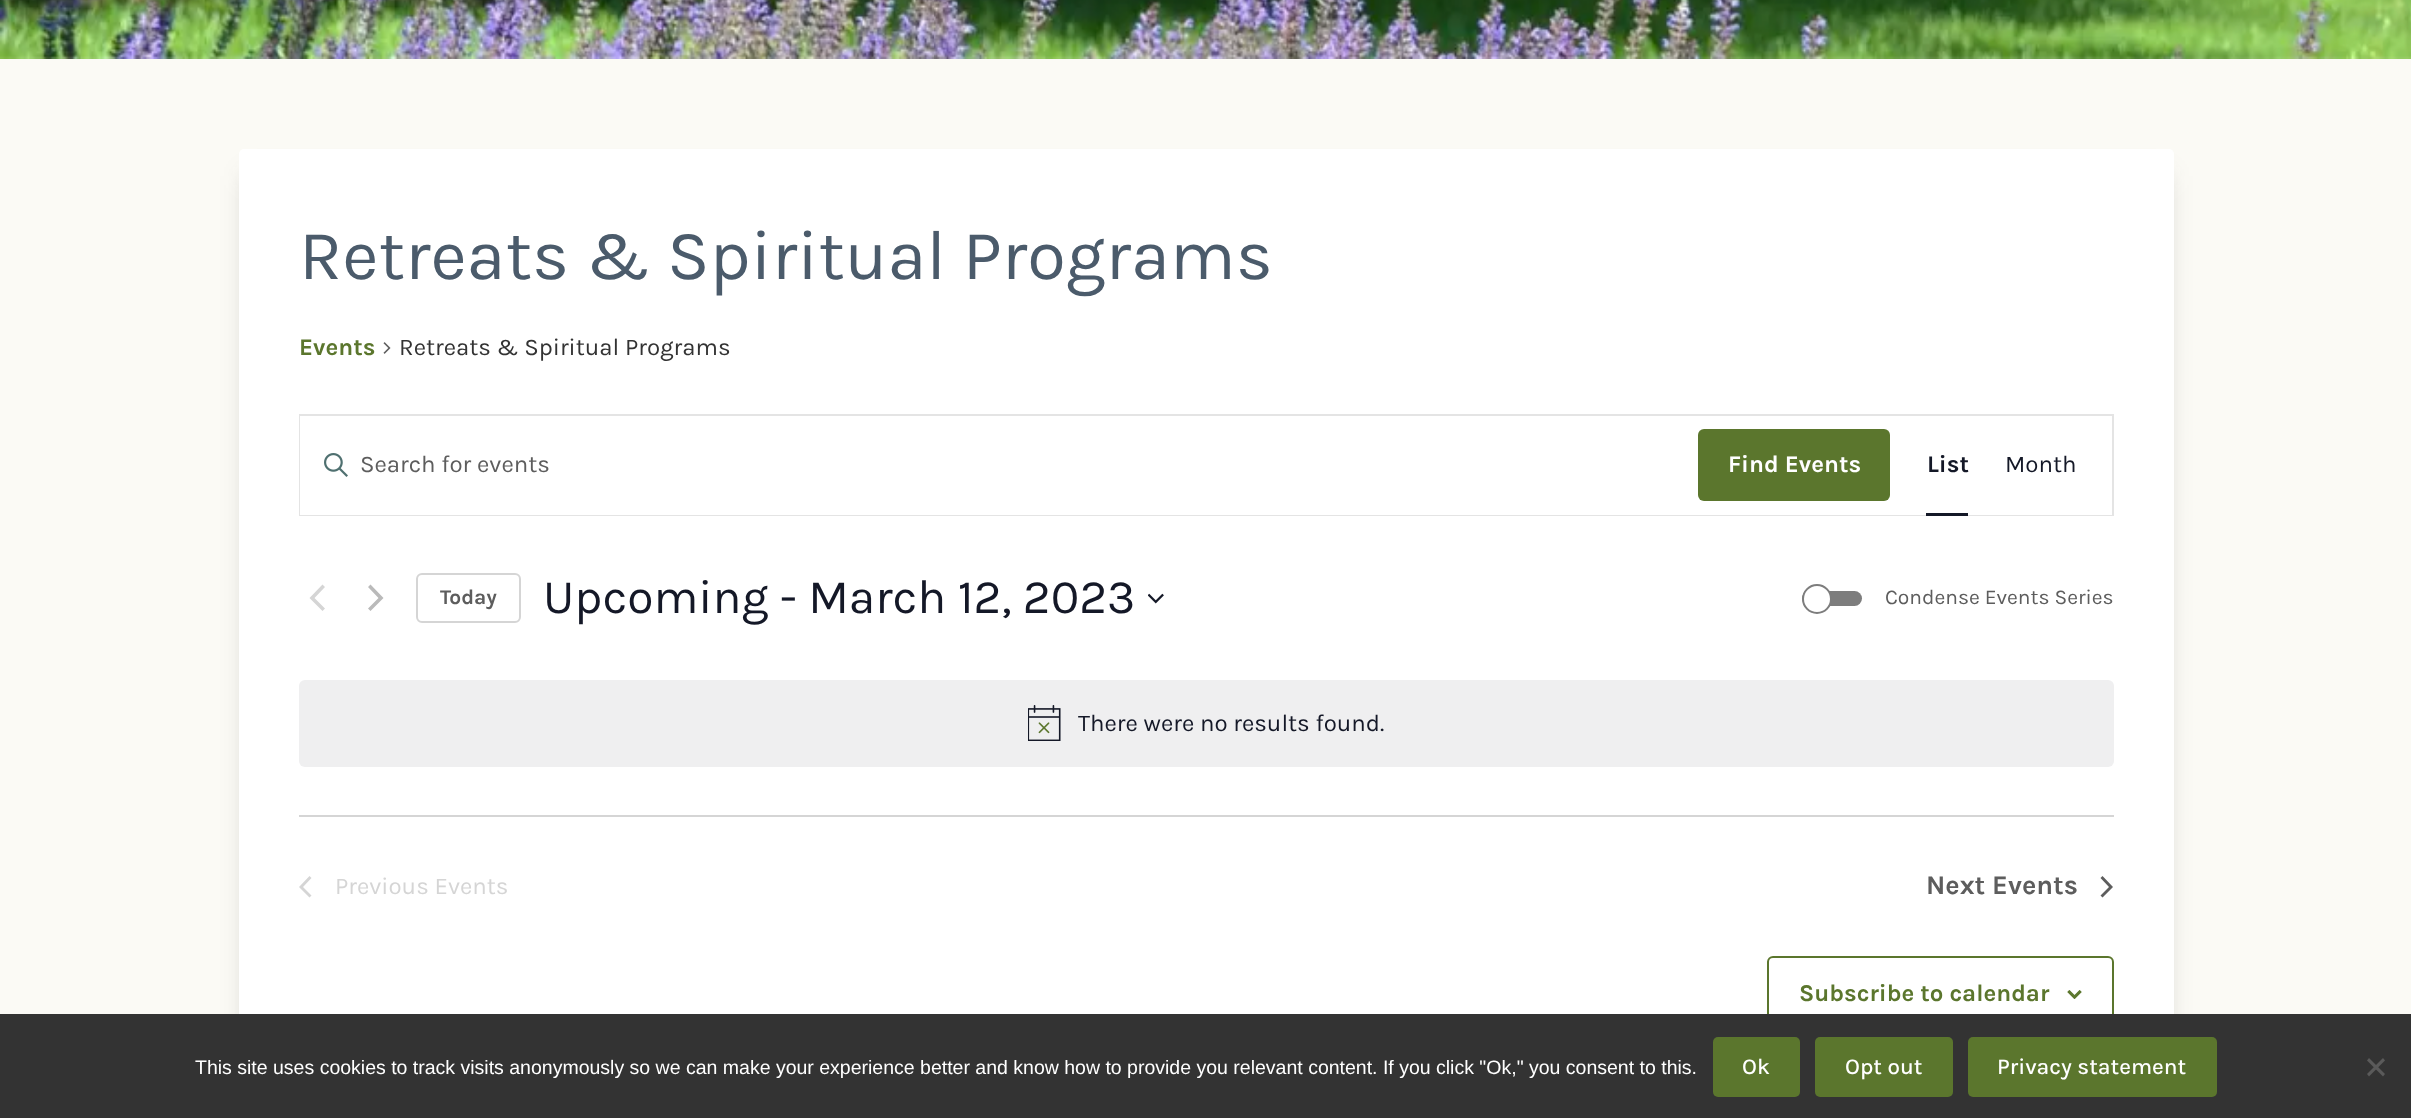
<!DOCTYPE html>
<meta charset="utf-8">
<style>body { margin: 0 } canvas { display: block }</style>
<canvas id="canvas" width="2411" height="1118"></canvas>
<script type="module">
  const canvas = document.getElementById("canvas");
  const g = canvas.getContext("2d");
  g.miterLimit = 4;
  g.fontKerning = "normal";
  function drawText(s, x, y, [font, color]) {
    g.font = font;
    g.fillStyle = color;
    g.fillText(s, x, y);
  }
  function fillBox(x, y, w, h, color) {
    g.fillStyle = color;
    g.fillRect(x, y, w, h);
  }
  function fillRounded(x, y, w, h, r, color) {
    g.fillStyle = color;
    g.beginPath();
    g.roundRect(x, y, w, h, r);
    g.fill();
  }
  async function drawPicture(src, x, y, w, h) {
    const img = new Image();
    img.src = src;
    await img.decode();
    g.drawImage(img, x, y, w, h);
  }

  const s1 = ["70.5px Karla", "#4B5B6B"];
  const s2 = ["bold 24px Karla", "#5B762D"];
  const s3 = ["24px Karla", "#333333"];
  const s4 = ["24px Karla", "#5D5D5D"];
  const s5 = ["bold 24px Karla", "#FFFFFF"];
  const s6 = ["bold 24px Karla", "#141827"];
  const s7 = ["24px Karla", "#141827"];
  const s8 = ["bold 21px Karla", "#5D5D5D"];
  const s9 = ["48px Karla", "#141827"];
  const s10 = ["21px Karla", "#5D5D5D"];
  const s11 = ["24px Karla", "#D5D5D5"];
  const s12 = ["bold 27px Karla", "#5D5D5D"];
  const s13 = ["19.5px Liberation Sans", "#FFFFFF"];
  const s14 = ["500 22.5px Karla", "#FFFFFF"];

  fillBox(0, 0, 2411, 1118, "#FBFAF5");
  await drawPicture("pic1.png", 0, 0, 2411, 59);
  g.fillStyle = "rgba(51, 51, 51, 0.25)";
  g.filter = "blur(13.5px)";
  g.beginPath();
  g.rect(248, 176, 1917, 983);
  g.fill();
  g.filter = "none";
  fillRounded(239, 149, 1935, 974, 5, "#FFFFFF");
  drawText("Retreats & Spiritual Programs", 299, 279, s1);
  drawText("Events", 299, 355, s2);
  await drawPicture("pic2.png", 383, 342, 8, 12);
  drawText("Retreats & Spiritual Programs", 399, 355, s3);
  g.strokeStyle = "#E4E4E4";
  g.lineWidth = 2;
  g.strokeRect(300, 415, 1813, 100);
  fillBox(300, 416, 1590, 99, "#FFFFFF");
  await drawPicture("pic3.png", 324, 453, 24, 24);
  drawText("Search for events", 360, 472, s4);
  fillRounded(1698, 429, 192, 72, 6, "#5B762D");
  drawText("Find Events", 1728, 472, s5);
  fillBox(1890, 514, 222, 1, "#FFFFFF");
  drawText("List", 1927, 472, s6);
  fillBox(1926, 513, 42, 3, "#141827");
  drawText("Month", 2005, 472, s7);
  g.fillStyle = "#D5D5D5";
  g.beginPath();
  g.moveTo(325, 608.5);
  g.lineTo(322.5, 611);
  g.lineTo(309.5, 598);
  g.lineTo(322.5, 584.5);
  g.lineTo(325, 587);
  g.lineTo(314.5, 598);
  g.closePath();
  g.fill();
  g.fillStyle = "#BABABA";
  g.beginPath();
  g.moveTo(368, 587);
  g.lineTo(370.5, 584.5);
  g.lineTo(383.5, 598);
  g.lineTo(370.5, 611);
  g.lineTo(368, 608.5);
  g.lineTo(378.5, 598);
  g.closePath();
  g.fill();
  g.beginPath();
  g.roundRect(417, 574, 103, 48, 5);
  g.strokeStyle = "#D5D5D5";
  g.stroke();
  drawText("Today", 440, 604, s8);
  drawText("Upcoming - March 12, 2023", 543, 613, s9);
  await drawPicture("pic4.png", 1148, 593, 16, 11);
  fillRounded(1802, 591, 60, 15, 7.5, "#7D7D7D");
  g.fillStyle = "#FFFFFF";
  g.beginPath();
  g.arc(1817, 599, 14, 0, Math.PI * 2);
  g.fill();
  g.strokeStyle = "#7D7D7D";
  g.stroke();
  drawText("Condense Events Series", 1885, 604, s10);
  fillRounded(299, 680, 1815, 87, 6, "#EFEFF0");
  await drawPicture("pic5.png", 1028, 705, 33, 36);
  drawText("There were no results found.", 1078, 731, s7);
  fillBox(299, 815, 1815, 2, "#D5D5D5");
  g.beginPath();
  g.moveTo(311.5, 895.5);
  g.lineTo(309.5, 897.5);
  g.lineTo(299, 887);
  g.lineTo(309.5, 876);
  g.lineTo(311.5, 878);
  g.lineTo(303, 887);
  g.closePath();
  g.fill();
  drawText("Previous Events", 335, 894, s11);
  drawText("Next Events", 1926, 894, s12);
  g.beginPath();
  g.moveTo(2100.5, 878);
  g.lineTo(2102.5, 876);
  g.lineTo(2113, 887);
  g.lineTo(2102.5, 897.5);
  g.lineTo(2100.5, 895.5);
  g.lineTo(2109, 887);
  g.closePath();
  g.fill();
  g.beginPath();
  g.roundRect(1768, 957, 345, 73, 5);
  g.strokeStyle = "#5B762D";
  g.stroke();
  drawText("Subscribe to calendar", 1799, 1001, s2);
  await drawPicture("pic6.png", 2067, 990, 15, 9);
  fillBox(0, 1014, 2411, 104, "#333333");
  drawText("This site uses cookies to track visits anonymously so we can make your experience better and know how to provide you relevant content. If you click \"Ok,\" you consent to this.", 195, 1074, s13);
  fillRounded(1713, 1037, 87, 60, 5, "#5B762D");
  drawText("Ok", 1742, 1074, s14);
  fillRounded(1815, 1037, 138, 60, 5, "#5B762D");
  drawText("Opt out", 1845, 1074, s14);
  fillRounded(1968, 1037, 249, 60, 5, "#5B762D");
  drawText("Privacy statement", 1997, 1074, s14);
  g.fillStyle = "#5A5A5A";
  g.beginPath();
  g.moveTo(2383, 1058);
  g.lineTo(2385, 1060.5);
  g.lineTo(2369, 1076.5);
  g.lineTo(2367, 1074);
  g.closePath();
  g.fill();
  g.beginPath();
  g.moveTo(2367, 1060.5);
  g.lineTo(2369, 1058);
  g.lineTo(2385, 1074);
  g.lineTo(2383, 1076.5);
  g.closePath();
  g.fill();
</script>
